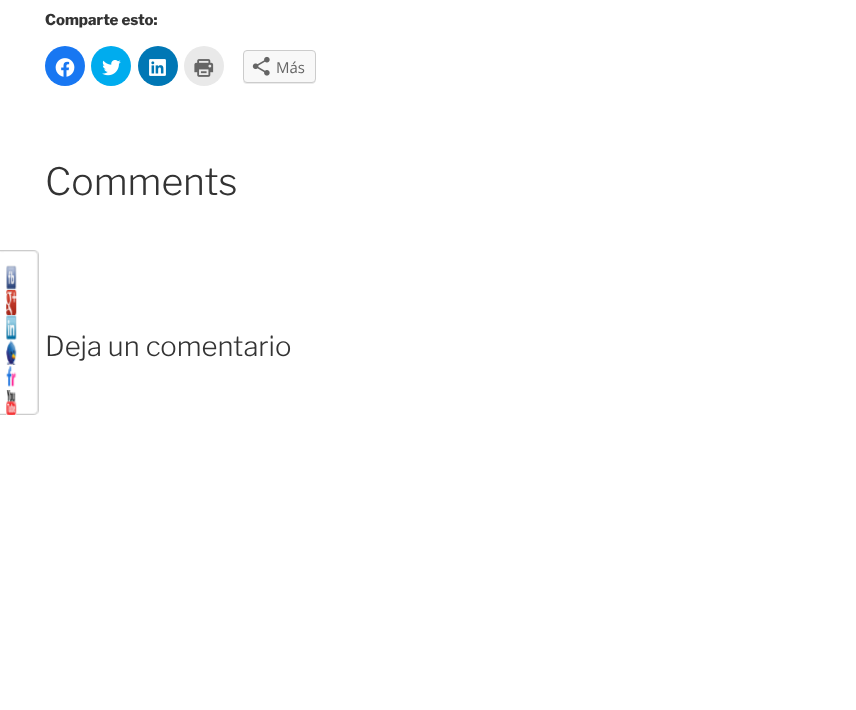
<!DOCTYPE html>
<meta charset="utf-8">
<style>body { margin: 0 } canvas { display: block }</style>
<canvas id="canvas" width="856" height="710"></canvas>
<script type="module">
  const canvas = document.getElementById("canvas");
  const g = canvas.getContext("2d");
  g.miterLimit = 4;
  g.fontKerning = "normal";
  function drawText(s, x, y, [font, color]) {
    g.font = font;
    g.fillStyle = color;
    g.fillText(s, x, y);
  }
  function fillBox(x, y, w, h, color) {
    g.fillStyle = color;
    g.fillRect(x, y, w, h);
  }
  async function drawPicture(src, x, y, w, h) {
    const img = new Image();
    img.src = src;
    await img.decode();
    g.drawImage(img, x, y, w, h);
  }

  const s1 = ["800 15px Libre Franklin", "#333333"];
  const s2 = ["15px Open Sans", "#656565"];
  const s3 = ["300 37.5px Libre Franklin", "#333333"];
  const s4 = ["300 27.5px Libre Franklin", "#333333"];

  fillBox(0, 0, 856, 710, "#FFFFFF");
  await drawPicture("pic1.png", 0, 250, 39, 152);
  await drawPicture("pic2.png", 0, 402, 39, 13);
  await drawPicture("pic3.png", 6, 265, 11, 25);
  await drawPicture("pic4.png", 6, 290, 11, 25);
  await drawPicture("pic5.png", 6, 315, 11, 25);
  await drawPicture("pic6.png", 6, 340, 11, 25);
  await drawPicture("pic7.png", 6, 366, 11, 21);
  await drawPicture("pic8.png", 6, 390, 11, 25);
  drawText("Comparte esto:", 45, 25, s1);
  g.fillStyle = "#1877F2";
  g.beginPath();
  g.arc(65, 66, 20, 0, Math.PI * 2);
  g.fill();
  await drawPicture("pic9.png", 55, 58, 20, 19);
  g.fillStyle = "#00ACEE";
  g.beginPath();
  g.arc(111, 66, 20, 0, Math.PI * 2);
  g.fill();
  await drawPicture("pic10.png", 102, 60, 19, 16);
  g.fillStyle = "#0077B5";
  g.beginPath();
  g.arc(158, 66, 20, 0, Math.PI * 2);
  g.fill();
  await drawPicture("pic11.png", 149, 59, 17, 17);
  g.fillStyle = "#E9E9E9";
  g.beginPath();
  g.arc(204, 66, 20, 0, Math.PI * 2);
  g.fill();
  await drawPicture("pic12.png", 194, 59, 20, 18);
  g.fillStyle = "#EBEBEB";
  g.beginPath();
  g.moveTo(243, 81);
  g.bezierCurveTo(243, 83, 245, 84, 247, 84);
  g.lineTo(312, 84);
  g.bezierCurveTo(314, 84, 316, 82, 316, 80);
  g.bezierCurveTo(315, 82, 314, 82, 312, 82);
  g.lineTo(246, 82);
  g.bezierCurveTo(245, 82, 244, 82, 243, 81);
  g.closePath();
  g.fill();
  g.fillStyle = "#F8F8F8";
  g.beginPath();
  g.roundRect(243.5, 50.5, 72, 32, 3.5);
  g.fill();
  g.strokeStyle = "#CCCCCC";
  g.stroke();
  await drawPicture("pic13.png", 252, 56, 18, 20);
  drawText("Más", 276, 73, s2);
  drawText("Comments", 45, 195, s3);
  drawText("Deja un comentario", 45, 356, s4);
</script>
